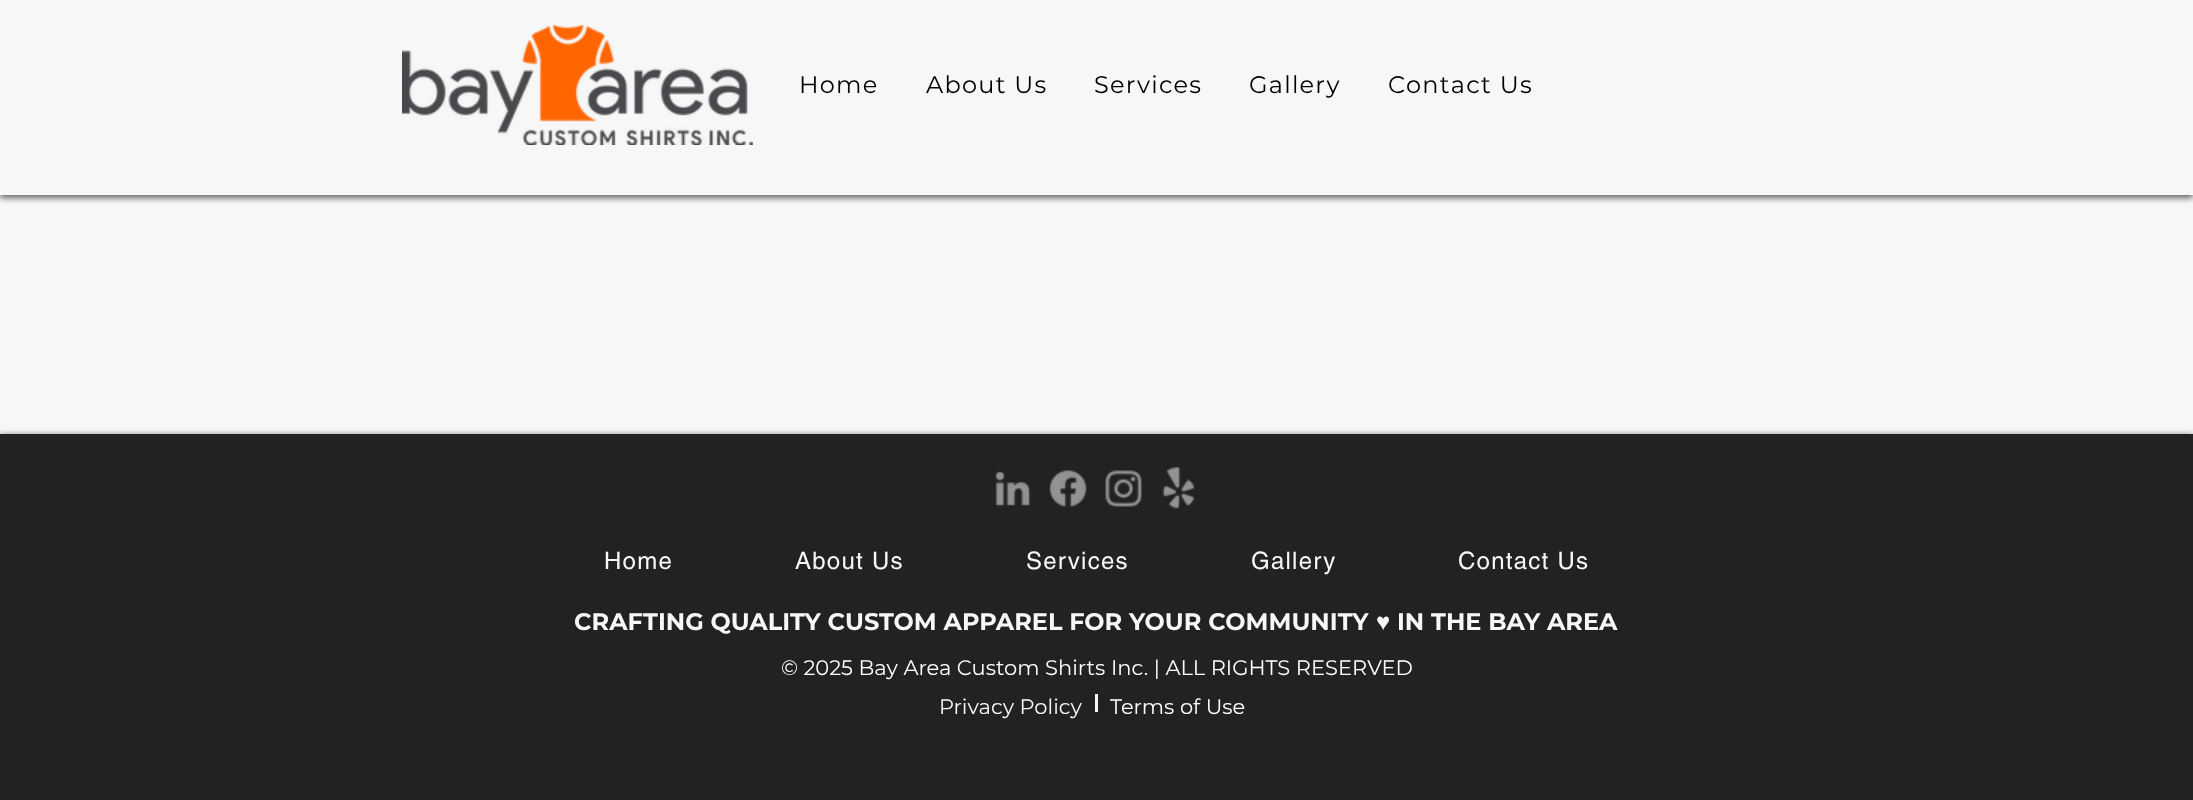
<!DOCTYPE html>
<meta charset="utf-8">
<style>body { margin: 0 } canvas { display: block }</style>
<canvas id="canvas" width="2193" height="800"></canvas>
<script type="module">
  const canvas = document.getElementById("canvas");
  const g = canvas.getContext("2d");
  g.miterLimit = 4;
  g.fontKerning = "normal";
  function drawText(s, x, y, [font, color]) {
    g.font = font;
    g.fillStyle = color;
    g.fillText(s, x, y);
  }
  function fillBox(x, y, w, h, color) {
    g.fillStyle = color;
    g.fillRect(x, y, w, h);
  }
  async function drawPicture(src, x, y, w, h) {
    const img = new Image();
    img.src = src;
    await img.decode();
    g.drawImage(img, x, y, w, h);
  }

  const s1 = ["24px Montserrat", "#000000"];
  const s2 = ["24px helvetica", "#F7F7F7"];
  const s3 = ["bold 24px Montserrat", "#F7F7F7"];
  const s4 = ["bold 24px Liberation Sans", "#F7F7F7"];
  const s5 = ["21px Montserrat", "#FFFFFF"];
  const s6 = ["21px Montserrat", "#F7F7F7"];

  fillBox(0, 0, 2193, 800, "#F7F7F7");
  g.fillStyle = "rgba(0, 0, 0, 0.6)";
  g.filter = "blur(3px)";
  g.beginPath();
  g.rect(0, 3, 2193, 195);
  g.fill();
  g.filter = "none";
  fillBox(0, 0, 2193, 195, "#F7F7F7");
  await drawPicture("pic1.png", 402, 25, 351, 120);
  g.letterSpacing = "1.25px";
  drawText("Home", 799, 93, s1);
  drawText("About Us", 926, 93, s1);
  drawText("Services", 1094, 93, s1);
  drawText("Gallery", 1249, 93, s1);
  drawText("Contact Us", 1388, 93, s1);
  g.fillStyle = "rgba(0, 0, 0, 0.6)";
  g.filter = "blur(3px)";
  g.beginPath();
  g.rect(0, 435, 2193, 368);
  g.fill();
  g.filter = "none";
  fillBox(0, 434, 2193, 366, "#222222");
  await drawPicture("pic2.png", 994, 471, 37, 35);
  await drawPicture("pic3.png", 1049, 470, 38, 37);
  await drawPicture("pic4.png", 1105, 470, 37, 37);
  await drawPicture("pic5.png", 1162, 466, 33, 43);
  drawText("Home", 604, 569, s2);
  drawText("About Us", 795, 569, s2);
  drawText("Services", 1026, 569, s2);
  drawText("Gallery", 1251, 569, s2);
  drawText("Contact Us", 1458, 569, s2);
  g.letterSpacing = "0px";
  drawText("CRAFTING QUALITY CUSTOM APPAREL FOR YOUR COMMUNITY", 574, 630, s3);
  drawText("♥︎", 1376, 630, s4);
  drawText("IN THE BAY AREA", 1397, 630, s3);
  drawText("© 2025 Bay Area Custom Shirts Inc. | ALL RIGHTS RESERVED", 781, 675, s5);
  drawText("Privacy Policy", 939, 714, s6);
  fillBox(1095, 694, 3, 18, "#F7F7F7");
  drawText("Terms of Use", 1110, 714, s5);
</script>
